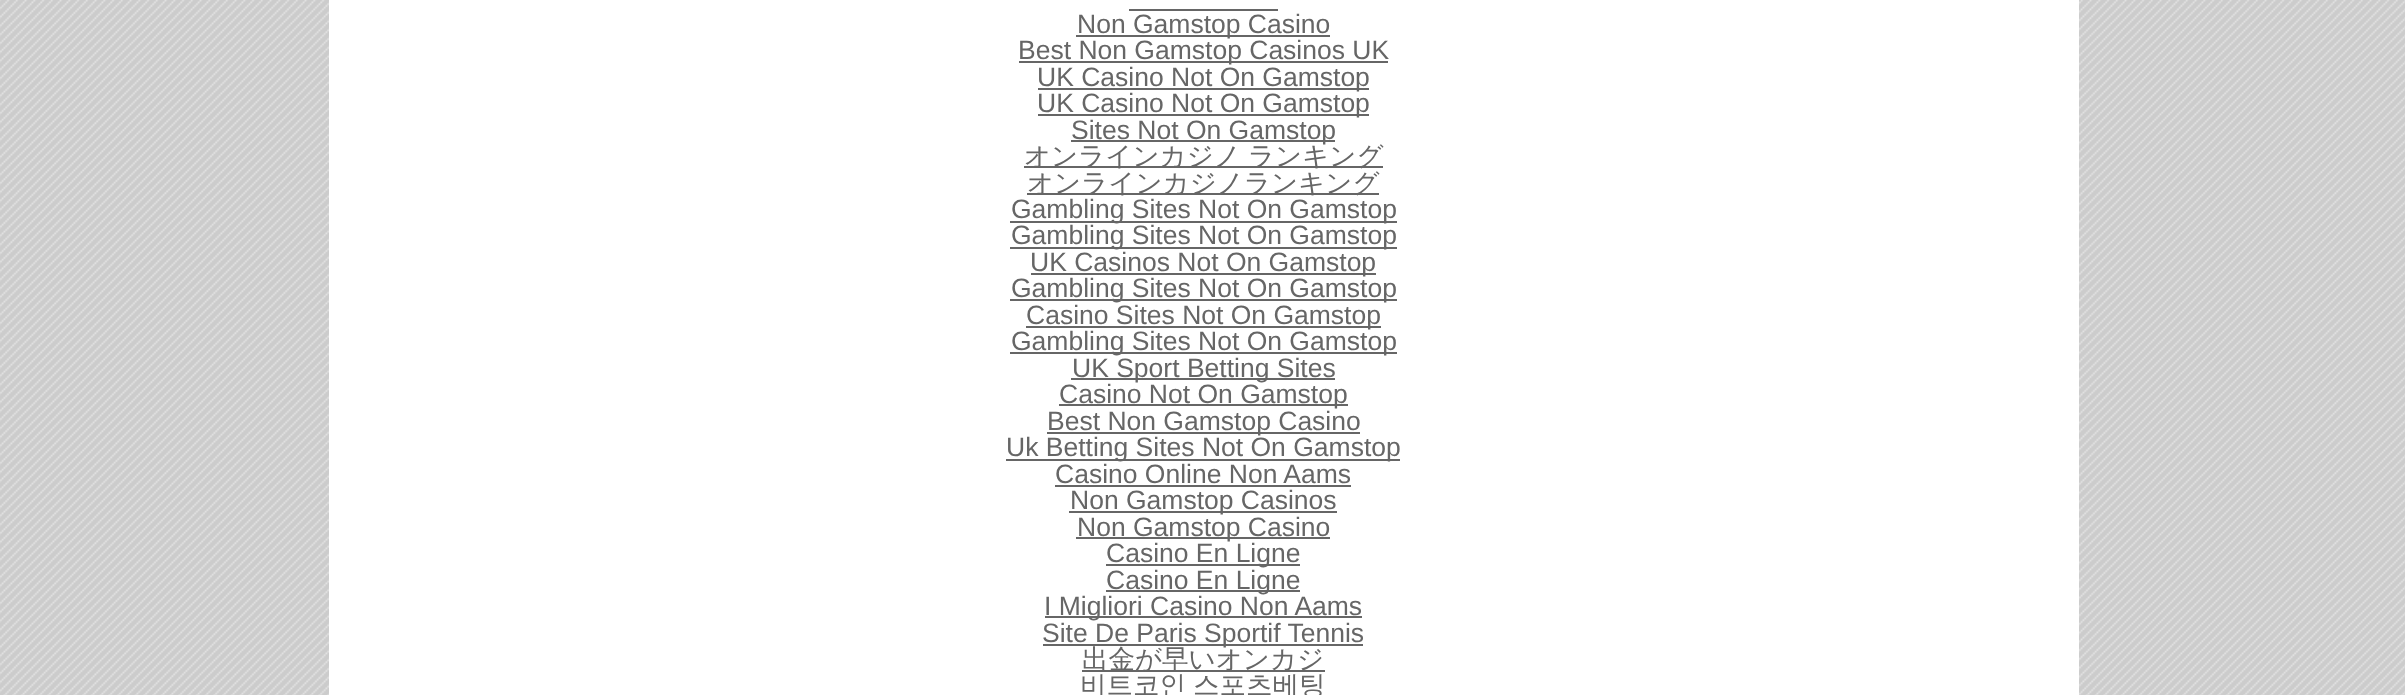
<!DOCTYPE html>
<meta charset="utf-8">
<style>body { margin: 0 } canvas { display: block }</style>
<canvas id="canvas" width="2405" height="695"></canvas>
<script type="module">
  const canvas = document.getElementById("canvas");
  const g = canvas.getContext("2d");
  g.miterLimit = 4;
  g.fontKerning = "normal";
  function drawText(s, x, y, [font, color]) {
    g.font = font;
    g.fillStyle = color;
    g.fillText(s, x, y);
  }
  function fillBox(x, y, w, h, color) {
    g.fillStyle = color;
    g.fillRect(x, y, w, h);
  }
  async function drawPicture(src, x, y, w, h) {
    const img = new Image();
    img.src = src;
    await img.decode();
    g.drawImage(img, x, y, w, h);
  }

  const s1 = ["26.5px Liberation Sans", "#666666"];
  const s2 = ["500 26.5px WenQuanYi Zen Hei", "#666666"];

  fillBox(0, 0, 2405, 695, "#FFFFFF");
  await drawPicture("pic1.png", 0, 0, 2405, 695);
  fillBox(329, 0, 1750, 695, "#FFFFFF");
  fillBox(1129, 9, 149, 2, "#666666");
  fillBox(1076, 35, 254, 2, "#666666");
  drawText("Non Gamstop Casino", 1077, 33, s1);
  fillBox(1019, 61, 369, 2, "#666666");
  drawText("Best Non Gamstop Casinos UK", 1018, 59, s1);
  fillBox(1038, 88, 331, 2, "#666666");
  drawText("UK Casino Not On Gamstop", 1037, 86, s1);
  fillBox(1038, 114, 331, 2, "#666666");
  drawText("UK Casino Not On Gamstop", 1037, 112, s1);
  fillBox(1071, 140, 264, 2, "#666666");
  drawText("Sites Not On Gamstop", 1071, 139, s1);
  fillBox(1024, 166, 359, 2, "#666666");
  g.wordSpacing = "-1px";
  drawText("オンラインカジノ ランキング", 1024, 165, s2);
  fillBox(1027, 193, 352, 2, "#666666");
  g.wordSpacing = "0px";
  drawText("オンラインカジノランキング", 1027, 192, s2);
  fillBox(1010, 221, 387, 2, "#666666");
  drawText("Gambling Sites Not On Gamstop", 1011, 218, s1);
  fillBox(1010, 247, 387, 2, "#666666");
  drawText("Gambling Sites Not On Gamstop", 1011, 244, s1);
  fillBox(1031, 273, 345, 2, "#666666");
  drawText("UK Casinos Not On Gamstop", 1030, 271, s1);
  fillBox(1010, 299, 387, 2, "#666666");
  drawText("Gambling Sites Not On Gamstop", 1011, 297, s1);
  fillBox(1026, 326, 355, 2, "#666666");
  drawText("Casino Sites Not On Gamstop", 1026, 324, s1);
  fillBox(1010, 352, 387, 2, "#666666");
  drawText("Gambling Sites Not On Gamstop", 1011, 350, s1);
  fillBox(1071, 378, 264, 2, "#666666");
  drawText("UK Sport Betting Sites", 1072, 377, s1);
  fillBox(1059, 404, 289, 2, "#666666");
  drawText("Casino Not On Gamstop", 1059, 403, s1);
  fillBox(1047, 432, 313, 2, "#666666");
  drawText("Best Non Gamstop Casino", 1047, 430, s1);
  fillBox(1006, 459, 394, 2, "#666666");
  drawText("Uk Betting Sites Not On Gamstop", 1006, 456, s1);
  drawText("Casino Online Non Aams", 1055, 483, s1);
  fillBox(1055, 485, 296, 2, "#666666");
  fillBox(1069, 511, 268, 2, "#666666");
  drawText("Non Gamstop Casinos", 1070, 509, s1);
  fillBox(1076, 537, 254, 2, "#666666");
  drawText("Non Gamstop Casino", 1077, 536, s1);
  fillBox(1106, 564, 194, 2, "#666666");
  drawText("Casino En Ligne", 1106, 562, s1);
  fillBox(1106, 590, 194, 2, "#666666");
  drawText("Casino En Ligne", 1106, 589, s1);
  fillBox(1045, 616, 317, 2, "#666666");
  drawText("I Migliori Casino Non Aams", 1044, 615, s1);
  fillBox(1043, 644, 320, 2, "#666666");
  drawText("Site De Paris Sportif Tennis", 1042, 642, s1);
  fillBox(1082, 670, 243, 2, "#666666");
  drawText("出金が早いオンカジ", 1082, 668, s2);
  g.wordSpacing = "-1px";
  drawText("비트코인 스포츠베팅", 1080, 694, s2);
</script>
